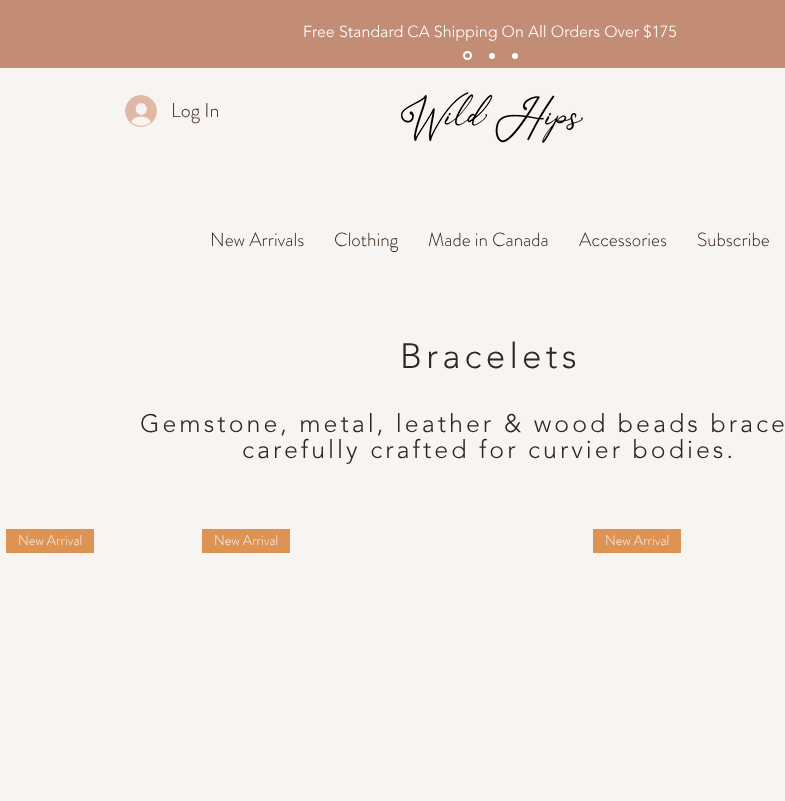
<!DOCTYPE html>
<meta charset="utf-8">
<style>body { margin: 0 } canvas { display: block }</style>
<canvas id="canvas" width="785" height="801"></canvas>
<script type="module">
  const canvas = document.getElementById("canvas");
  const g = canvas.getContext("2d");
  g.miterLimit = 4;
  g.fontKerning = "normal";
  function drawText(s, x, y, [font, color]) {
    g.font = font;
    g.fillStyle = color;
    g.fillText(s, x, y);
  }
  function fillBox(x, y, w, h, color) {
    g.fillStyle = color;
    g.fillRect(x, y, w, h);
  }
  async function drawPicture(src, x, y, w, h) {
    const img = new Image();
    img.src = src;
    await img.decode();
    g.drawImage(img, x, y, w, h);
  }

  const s1 = ["300 16px 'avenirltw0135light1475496'", "#FFFFFF"];
  const s2 = ["300 20px 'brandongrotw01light'", "#3E2518"];
  const s3 = ["300 19px 'brandongrotw01light'", "#301D10"];
  const s4 = ["300 35px 'avenirltw0135light1475496'", "#292929"];
  const s5 = ["300 25px 'avenirltw0135light1475496'", "#292929"];
  const s6 = ["300 14px 'brandongrotw01light'", "#F8F4F1"];

  fillBox(0, 0, 785, 801, "#F8F4F1");
  fillBox(0, 0, 785, 68, "#C28D74");
  drawText("Free Standard CA Shipping On All Orders Over $175", 303, 37, s1);
  g.beginPath();
  g.arc(467.5, 55.5, 3.5, 0, Math.PI * 2);
  g.strokeStyle = "#FFFFFF";
  g.lineWidth = 2;
  g.stroke();
  g.beginPath();
  g.arc(492, 56, 3, 0, Math.PI * 2);
  g.fill();
  g.beginPath();
  g.arc(515, 56, 3, 0, Math.PI * 2);
  g.fill();
  await drawPicture("pic1.png", 125, 95, 32, 32);
  drawText("Log In", 171, 117, s2);
  await drawPicture("pic2.png", 400, 92, 183, 51);
  drawText("New Arrivals", 210, 246, s3);
  drawText("Clothing", 334, 246, s3);
  drawText("Made in Canada", 428, 246, s3);
  drawText("Accessories", 579, 246, s3);
  drawText("Subscribe", 697, 246, s3);
  g.letterSpacing = "4.25px";
  drawText("Bracelets", 400, 368, s4);
  g.letterSpacing = "3px";
  drawText("Gemstone, metal, leather & wood beads brace", 140, 432, s5);
  drawText("carefully crafted for curvier bodies.", 242, 458, s5);
  fillBox(6, 529, 88, 24, "#DD9353");
  g.letterSpacing = "0px";
  drawText("New Arrival", 18, 545, s6);
  fillBox(202, 529, 88, 24, "#DD9353");
  drawText("New Arrival", 214, 545, s6);
  fillBox(593, 529, 88, 24, "#DD9353");
  drawText("New Arrival", 605, 545, s6);
</script>
